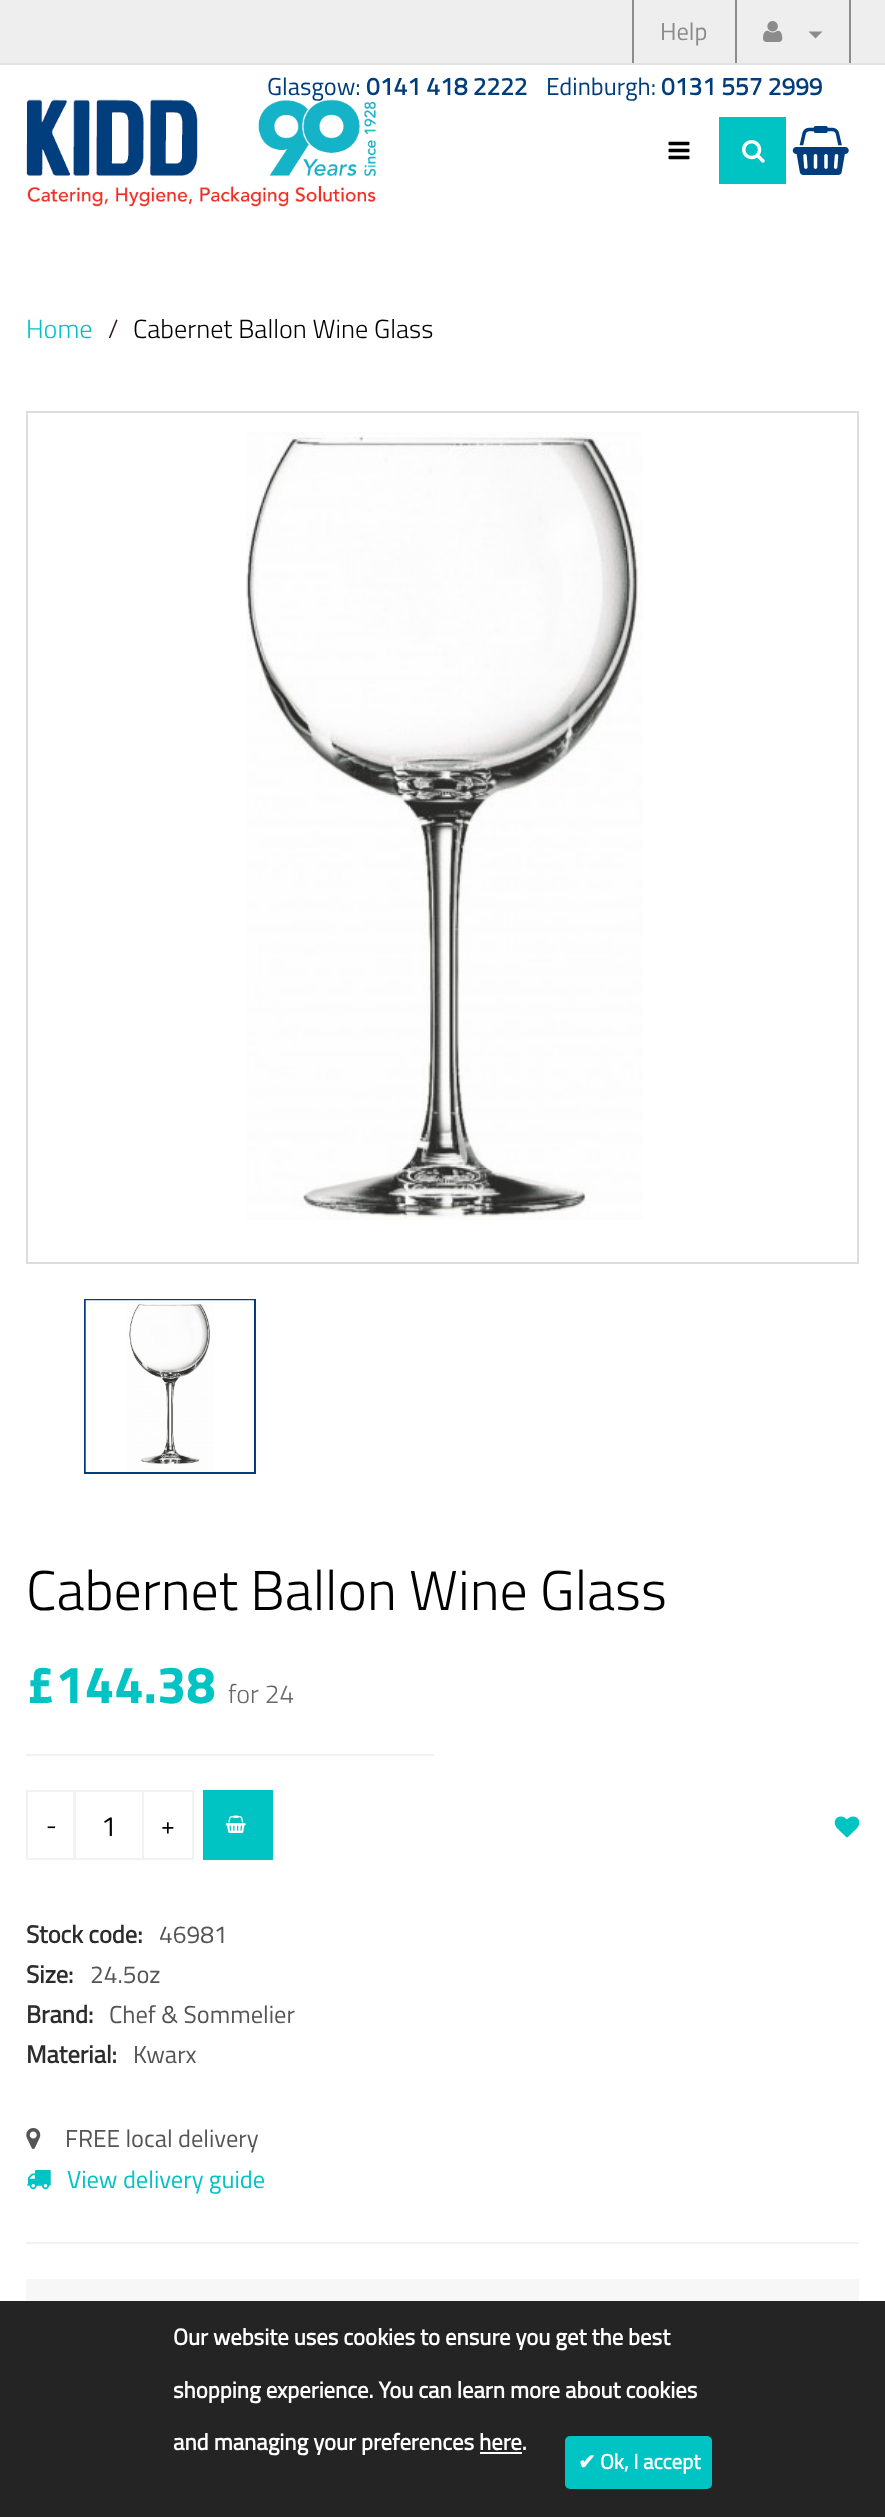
<!DOCTYPE html>
<meta charset="utf-8">
<style>body { margin: 0 } canvas { display: block }</style>
<canvas id="canvas" width="885" height="2517"></canvas>
<script type="module">
  const canvas = document.getElementById("canvas");
  const g = canvas.getContext("2d");
  g.miterLimit = 4;
  g.fontKerning = "normal";
  function drawText(s, x, y, [font, color]) {
    g.font = font;
    g.fillStyle = color;
    g.fillText(s, x, y);
  }
  function fillBox(x, y, w, h, color) {
    g.fillStyle = color;
    g.fillRect(x, y, w, h);
  }
  function fillRounded(x, y, w, h, r, color) {
    g.fillStyle = color;
    g.beginPath();
    g.roundRect(x, y, w, h, r);
    g.fill();
  }
  async function drawPicture(src, x, y, w, h) {
    const img = new Image();
    img.src = src;
    await img.decode();
    g.drawImage(img, x, y, w, h);
  }

  const s1 = ["24.5px Titillium Web", "#8C8C8C"];
  const s2 = ["24.5px Titillium Web", "#003D7C"];
  const s3 = ["bold 24.5px Titillium Web", "#003D7C"];
  const s4 = ["300 26.25px Titillium Web", "#00C4C4"];
  const s5 = ["300 26.25px Titillium Web", "#311111"];
  const s6 = ["300 26.25px Titillium Web", "#000000"];
  const s7 = ["300 56px Titillium Web", "#000000"];
  const s8 = ["bold 52.5px 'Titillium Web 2'", "#00C4C4"];
  const s9 = ["300 26.25px Titillium Web", "#696969"];
  const s10 = ["24.5px Titillium Web", "#000000"];
  const s11 = ["28px Titillium Web", "#000000"];
  const s12 = ["bold 24.5px Titillium Web", "#2C2C2C"];
  const s13 = ["24.5px Titillium Web", "#555555"];
  const s14 = ["24.5px Titillium Web", "#00C4C4"];
  const s15 = ["bold 22.75px Titillium Web", "#FFFFFF"];
  const s16 = ["bold 21px DejaVu Sans", "#FFFFFF"];
  const s17 = ["bold 21px Titillium Web", "#FFFFFF"];

  fillBox(0, 0, 885, 2517, "#FFFFFF");
  fillBox(0, 0, 885, 63, "#EEEEEE");
  fillBox(0, 63, 885, 2, "#E2E2E2");
  fillBox(632, 0, 2, 63, "#8C8C8C");
  drawText("Help", 660, 40, s1);
  fillBox(849, 0, 2, 63, "#8C8C8C");
  fillBox(735, 0, 2, 63, "#8C8C8C");
  await drawPicture("pic1.png", 763, 21, 20, 21);
  g.beginPath();
  g.moveTo(808.5, 31.5);
  g.lineTo(822.5, 31.5);
  g.lineTo(815.5, 38.5);
  g.closePath();
  g.fill();
  await drawPicture("pic3.png", 26, 99, 351, 108);
  drawText("Glasgow:", 267, 95, s2);
  drawText("0141 418 2222", 366, 95, s3);
  drawText("Edinburgh:", 546, 95, s2);
  drawText("0131 557 2999", 661, 95, s3);
  fillBox(719, 117, 67, 67, "#00C4C4");
  await drawPicture("pic2.png", 742, 140, 23, 23);
  await drawPicture("pic4.png", 668, 141, 22, 19);
  await drawPicture("pic5.png", 792, 126, 57, 49);
  drawText("Home", 26, 338, s4);
  drawText("/", 108, 338, s5);
  drawText("Cabernet Ballon Wine Glass", 133, 338, s6);
  g.strokeStyle = "#DDDDDD";
  g.lineWidth = 2;
  g.strokeRect(27, 412, 831, 851);
  await drawPicture("pic6.png", 246, 432, 397, 788);
  g.strokeStyle = "#003D7C";
  g.strokeRect(85, 1300, 170, 173);
  await drawPicture("pic7.png", 85, 1300, 169, 172);
  drawText("Cabernet Ballon Wine Glass", 26, 1610, s7);
  fillBox(26, 1754, 408, 2, "#F2F2F2");
  drawText("£144.38", 26, 1703, s8);
  drawText("for 24", 228, 1703, s9);
  g.strokeStyle = "#F2F2F2";
  g.strokeRect(27, 1791, 47, 68);
  drawText("-", 46, 1834, s10);
  g.strokeRect(75, 1791, 68, 68);
  drawText("1", 101, 1836, s11);
  g.strokeRect(143, 1791, 50, 68);
  drawText("+", 161, 1834, s10);
  fillBox(203, 1790, 70, 70, "#00C4C4");
  await drawPicture("pic8.png", 225, 1815, 21, 18);
  await drawPicture("pic9.png", 834, 1816, 26, 22);
  fillBox(26, 2242, 833, 2, "#F2F2F2");
  drawText("Stock code:", 26, 1943, s12);
  drawText("46981", 159, 1943, s13);
  drawText("Size:", 26, 1983, s12);
  drawText("24.5oz", 90, 1983, s13);
  drawText("Brand:", 26, 2023, s12);
  drawText("Chef & Sommelier", 109, 2023, s13);
  drawText("Material:", 26, 2063, s12);
  drawText("Kwarx", 133, 2063, s13);
  await drawPicture("pic10.png", 26, 2128, 15, 21);
  drawText("FREE local delivery", 65, 2147, s13);
  await drawPicture("pic11.png", 27, 2170, 24, 20);
  drawText("View delivery guide", 67, 2188, s14);
  fillBox(26, 2279, 833, 22, "#F7F7F7");
  fillBox(0, 2301, 885, 216, "#242424");
  drawText("Our website uses cookies to ensure you get the best", 173, 2345, s15);
  drawText("shopping experience. You can learn more about cookies", 173, 2398, s15);
  drawText("and managing your preferences here.", 173, 2450, s15);
  fillBox(480, 2452, 42, 2, "#FFFFFF");
  fillRounded(565, 2436, 147, 53, 5, "#00C4C4");
  drawText("✔", 578, 2469, s16);
  drawText("Ok, I accept", 600, 2469, s17);
</script>
